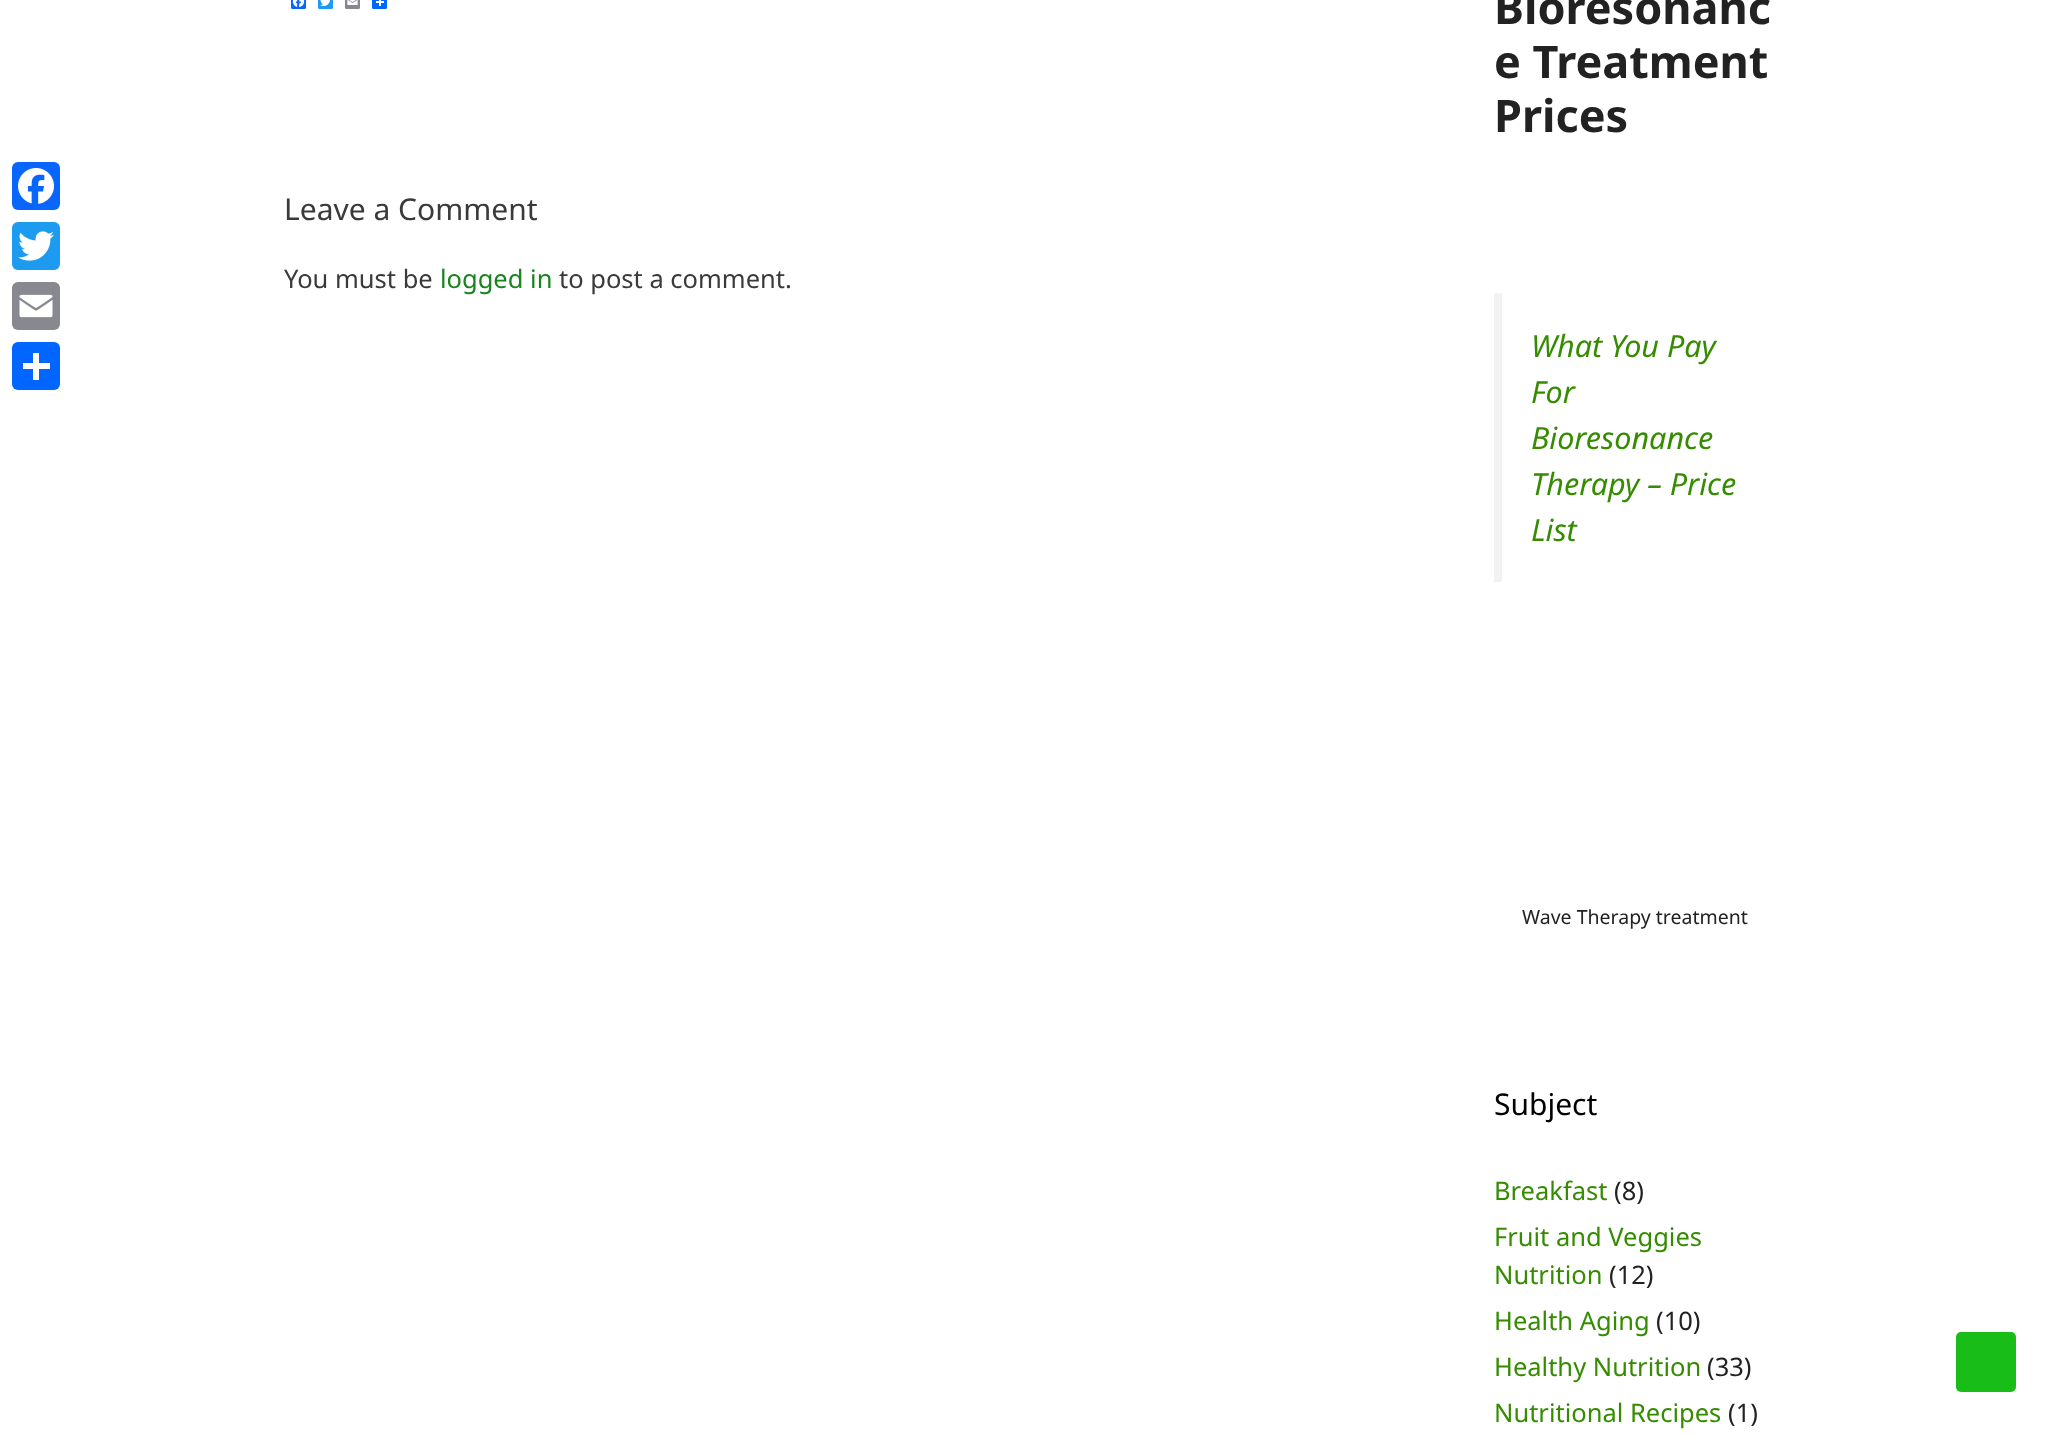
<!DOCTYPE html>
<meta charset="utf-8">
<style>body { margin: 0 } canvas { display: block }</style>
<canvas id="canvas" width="2061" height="1436"></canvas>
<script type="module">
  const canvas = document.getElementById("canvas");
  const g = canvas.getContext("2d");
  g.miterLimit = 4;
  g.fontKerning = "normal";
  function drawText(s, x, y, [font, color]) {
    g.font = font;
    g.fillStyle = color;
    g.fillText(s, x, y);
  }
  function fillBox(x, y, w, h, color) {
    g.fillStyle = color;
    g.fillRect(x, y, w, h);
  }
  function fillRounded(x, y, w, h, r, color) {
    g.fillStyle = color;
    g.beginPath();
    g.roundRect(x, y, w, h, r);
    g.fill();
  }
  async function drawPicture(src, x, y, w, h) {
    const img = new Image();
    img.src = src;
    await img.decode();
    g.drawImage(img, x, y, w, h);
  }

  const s1 = ["30px Noto Sans", "#3A3A3A"];
  const s2 = ["25.5px Noto Sans", "#3A3A3A"];
  const s3 = ["25.5px Noto Sans", "#17851D"];
  const s4 = ["bold 45px Noto Sans", "#222222"];
  const s5 = ["italic 30.5px Noto Sans", "#358C00"];
  const s6 = ["19.5px Noto Sans", "#222222"];
  const s7 = ["30px Noto Sans", "#000000"];
  const s8 = ["25.5px Noto Sans", "#358C00"];
  const s9 = ["25.5px Noto Sans", "#222222"];

  fillBox(0, 0, 2061, 1436, "#FFFFFF");
  fillRounded(12, 162, 48, 48, 6, "#0866FF");
  await drawPicture("pic1.png", 18, 168, 36, 36);
  fillRounded(12, 222, 48, 48, 6, "#1D9BF0");
  await drawPicture("pic2.png", 18, 231, 36, 30);
  fillRounded(12, 282, 48, 48, 6, "#888990");
  await drawPicture("pic3.png", 19, 294, 34, 24);
  fillRounded(12, 342, 48, 48, 6, "#0166FF");
  fillBox(33, 353, 6, 27, "#FFFFFF");
  fillBox(23, 363, 27, 6, "#FFFFFF");
  fillRounded(291, -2, 15, 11, 1.5, "#0866FF");
  await drawPicture("pic4.png", 292, 0, 13, 7);
  fillRounded(318, -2, 15, 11, 1.5, "#1D9BF0");
  await drawPicture("pic5.png", 320, 0, 10, 7);
  fillRounded(345, -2, 15, 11, 1.5, "#888990");
  await drawPicture("pic6.png", 347, 0, 11, 5);
  fillRounded(372, -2, 15, 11, 1.5, "#0166FF");
  fillBox(379, 0, 2, 6, "#FFFFFF");
  fillBox(376, 1, 8, 2, "#FFFFFF");
  drawText("Leave a Comment", 284, 220, s1);
  drawText("You must be", 284, 288, s2);
  drawText("logged in", 440, 288, s3);
  drawText("to post a comment.", 559, 288, s2);
  drawText("Bioresonanc", 1494, 24, s4);
  drawText("e Treatment", 1494, 78, s4);
  drawText("Prices", 1494, 132, s4);
  fillBox(1494, 293, 8, 289, "#F2F2F2");
  drawText("What You Pay", 1531, 357, s5);
  drawText("For", 1531, 403, s5);
  drawText("Bioresonance", 1531, 449, s5);
  drawText("Therapy – Price", 1531, 495, s5);
  drawText("List", 1531, 541, s5);
  drawText("Wave Therapy treatment", 1522, 924, s6);
  drawText("Subject", 1494, 1115, s7);
  drawText("Breakfast", 1494, 1200, s8);
  drawText("(8)", 1614, 1200, s9);
  drawText("Fruit and Veggies", 1494, 1246, s8);
  drawText("Nutrition", 1494, 1284, s8);
  drawText("(12)", 1609, 1284, s9);
  drawText("Health Aging", 1494, 1330, s8);
  drawText("(10)", 1656, 1330, s9);
  drawText("Healthy Nutrition", 1494, 1376, s8);
  drawText("(33)", 1707, 1376, s9);
  drawText("Nutritional Recipes", 1494, 1422, s8);
  drawText("(1)", 1728, 1422, s9);
  fillRounded(1956, 1332, 60, 60, 5, "#18BD18");
</script>
